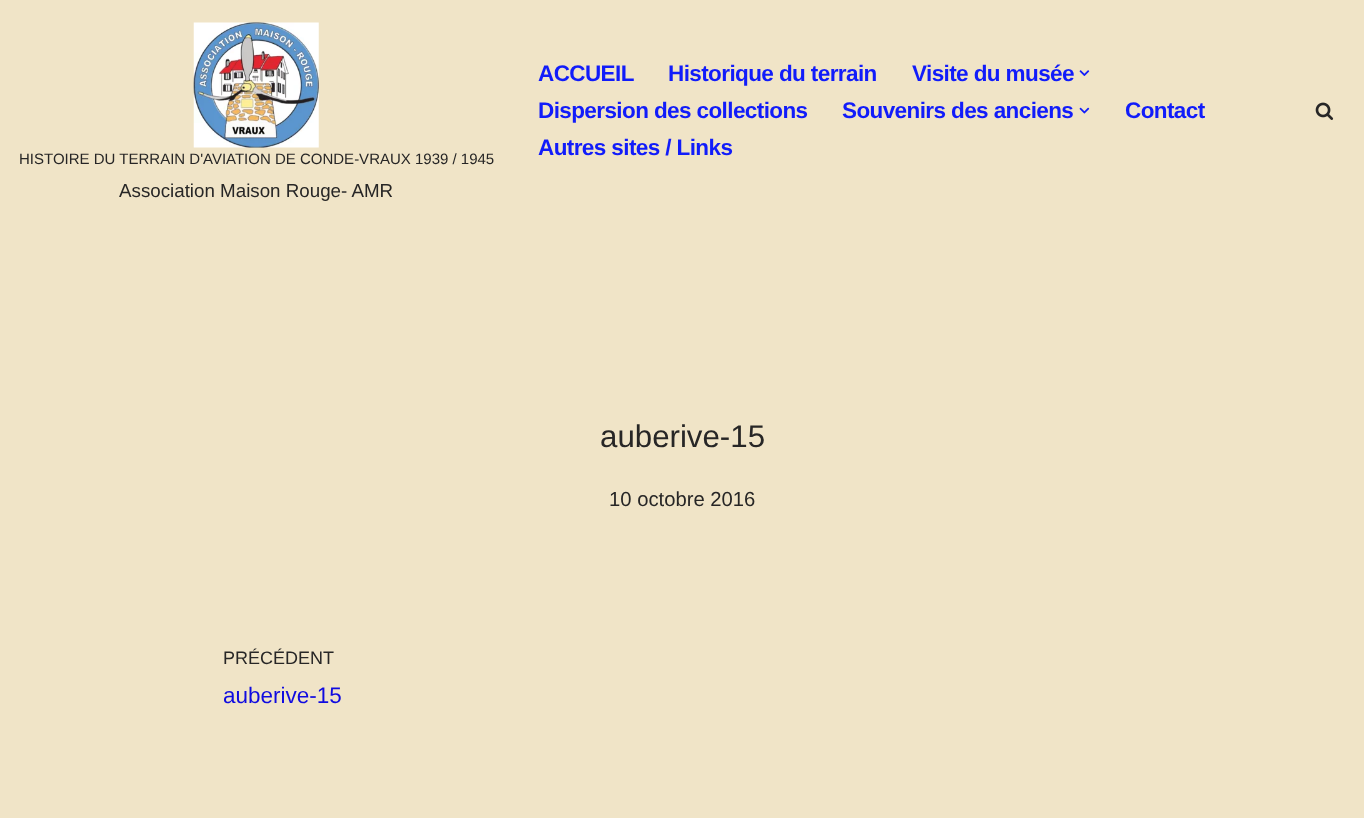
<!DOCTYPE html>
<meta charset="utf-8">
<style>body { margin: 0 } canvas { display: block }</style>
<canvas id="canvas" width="1364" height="818"></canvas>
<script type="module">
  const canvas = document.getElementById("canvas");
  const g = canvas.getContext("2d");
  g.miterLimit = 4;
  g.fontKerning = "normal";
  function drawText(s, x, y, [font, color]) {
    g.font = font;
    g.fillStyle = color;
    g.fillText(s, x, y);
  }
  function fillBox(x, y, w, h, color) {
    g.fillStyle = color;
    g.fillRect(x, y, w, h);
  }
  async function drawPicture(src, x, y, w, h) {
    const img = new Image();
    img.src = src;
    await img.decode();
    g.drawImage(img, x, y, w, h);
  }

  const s1 = ["bold 22.5px Liberation Sans", "#111CFA"];
  const s2 = ["15px Liberation Sans", "#272626"];
  const s3 = ["18.75px Liberation Sans", "#272626"];
  const s4 = ["31.25px Liberation Sans", "#272626"];
  const s5 = ["20.25px Liberation Sans", "#272626"];
  const s6 = ["18px Liberation Sans", "#272626"];
  const s7 = ["22.5px Liberation Sans", "#100BE0"];

  fillBox(0, 0, 1364, 818, "#F0E4C7");
  g.letterSpacing = "-0.6px";
  drawText("ACCUEIL", 538, 81, s1);
  drawText("Historique du terrain", 668, 81, s1);
  drawText("Visite du musée", 912, 81, s1);
  await drawPicture("pic1.png", 1079, 70, 11, 6);
  drawText("Dispersion des collections", 538, 118, s1);
  drawText("Souvenirs des anciens", 842, 118, s1);
  await drawPicture("pic2.png", 1079, 107, 11, 7);
  drawText("Contact", 1125, 118, s1);
  drawText("Autres sites / Links", 538, 155, s1);
  await drawPicture("pic3.png", 1315, 102, 19, 18);
  await drawPicture("pic4.png", 193, 22, 126, 126);
  g.letterSpacing = "0px";
  drawText("HISTOIRE DU TERRAIN D'AVIATION DE CONDE-VRAUX 1939 / 1945", 19, 164, s2);
  drawText("Association Maison Rouge- AMR", 119, 197, s3);
  drawText("auberive-15", 600, 447, s4);
  drawText("10 octobre 2016", 609, 506, s5);
  drawText("PRÉCÉDENT", 223, 664, s6);
  drawText("auberive-15", 223, 703, s7);
</script>
